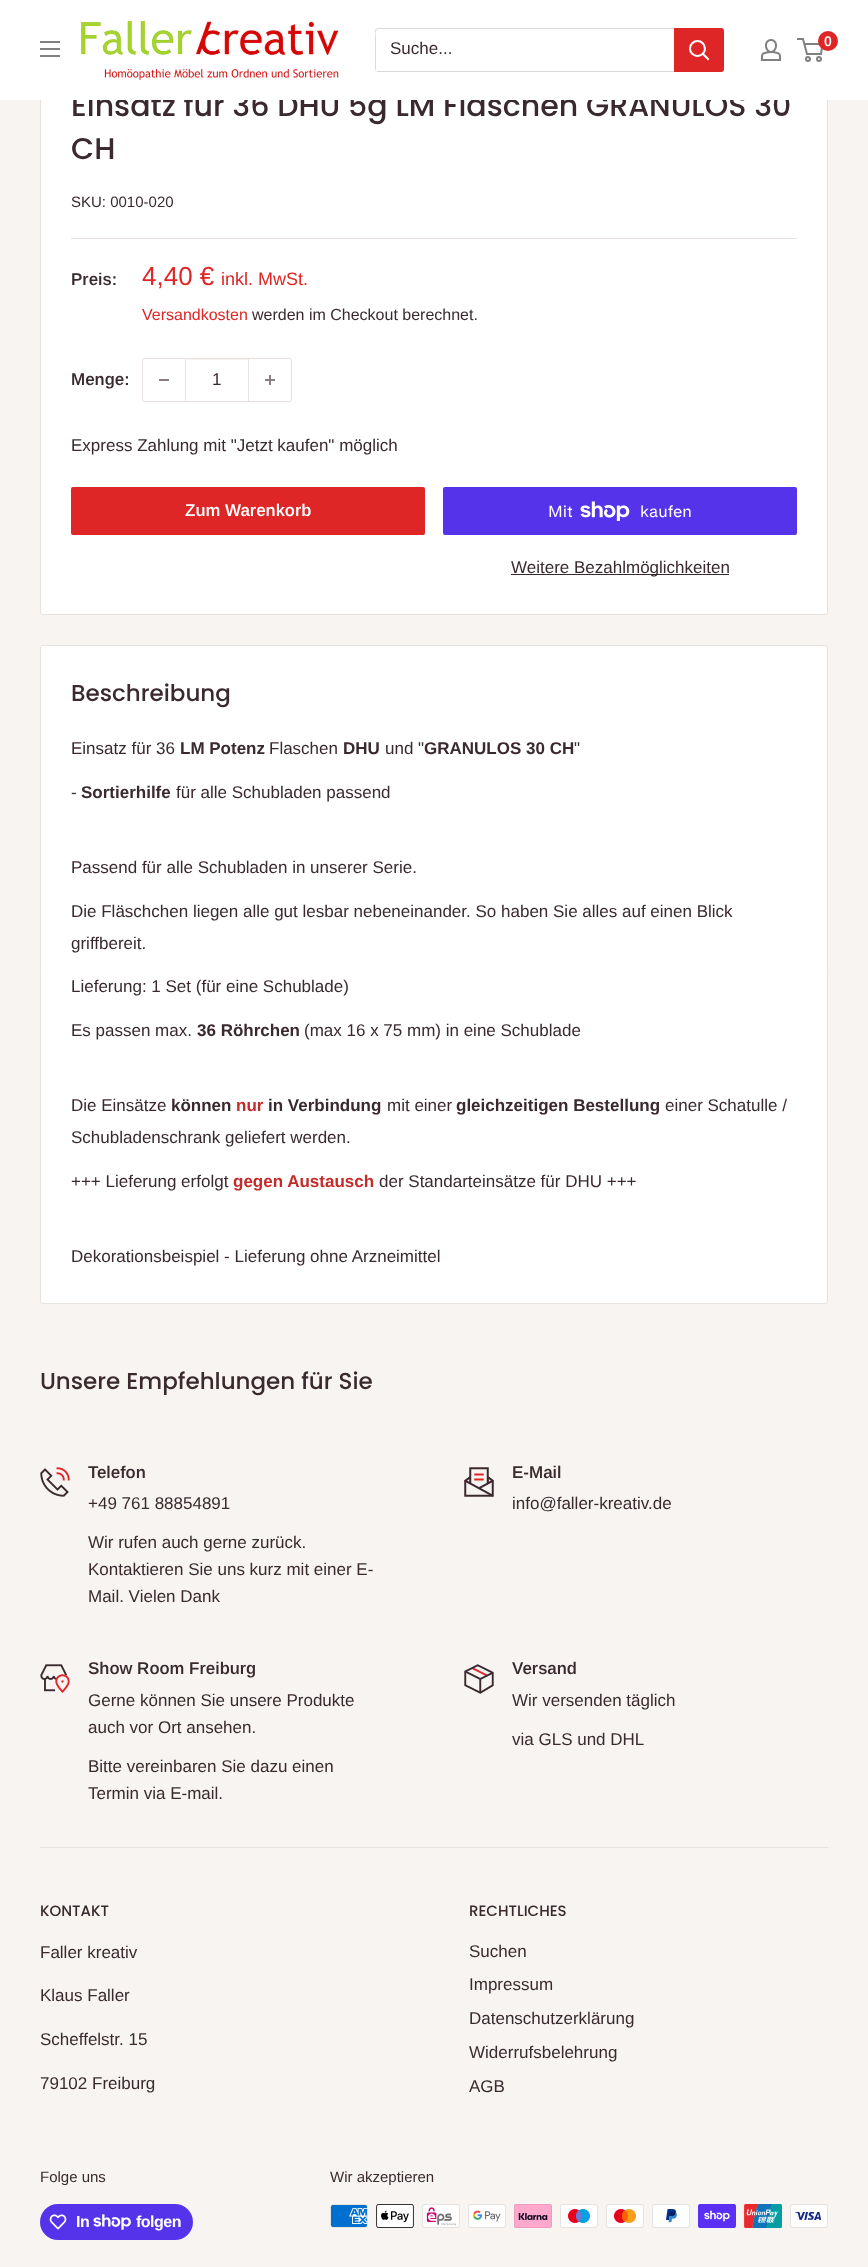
<!DOCTYPE html>
<meta charset="utf-8">
<style>body { margin: 0 } canvas { display: block }</style>
<canvas id="canvas" width="868" height="2267"></canvas>
<script type="module">
  const canvas = document.getElementById("canvas");
  const g = canvas.getContext("2d");
  g.miterLimit = 4;
  g.fontKerning = "normal";
  function drawText(s, x, y, [font, color]) {
    g.font = font;
    g.fillStyle = color;
    g.fillText(s, x, y);
  }
  function fillBox(x, y, w, h, color) {
    g.fillStyle = color;
    g.fillRect(x, y, w, h);
  }
  function fillRounded(x, y, w, h, r, color) {
    g.fillStyle = color;
    g.beginPath();
    g.roundRect(x, y, w, h, r);
    g.fill();
  }
  async function drawPicture(src, x, y, w, h) {
    const img = new Image();
    img.src = src;
    await img.decode();
    g.drawImage(img, x, y, w, h);
  }

  const s1 = ["500 30px Poppins", "#3A2A2F"];
  const s2 = ["17px Arimo", "#3A2A2F"];
  const s3 = ["600 14px Arimo", "#FFFFFF"];
  const s4 = ["15px Arimo", "#3A2A2F"];
  const s5 = ["600 17px Arimo", "#3A2A2F"];
  const s6 = ["26px Arimo", "#DF2626"];
  const s7 = ["18px Arimo", "#DF2626"];
  const s8 = ["16px Arimo", "#DF2626"];
  const s9 = ["16px Arimo", "#3A2A2F"];
  const s10 = ["600 17px Arimo", "#FFFFFF"];
  const s11 = ["16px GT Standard", "#FFFFFF"];
  const s12 = ["500 23px Poppins", "#3A2A2F"];
  const s13 = ["bold 17px Arimo", "#3A2A2F"];
  const s14 = ["bold 17px Arimo", "#C42C2C"];
  const s15 = ["500 15px Poppins", "#3A2A2F"];
  const s16 = ["bold 16px Liberation Sans", "#FFFFFF"];

  fillBox(0, 0, 868, 2267, "#F7F4F2");
  fillRounded(40, 85, 788, 530, 3, "#FFFFFF");
  g.fillStyle = "#E7E2DE";
  g.beginPath();
  g.moveTo(43, 85);
  g.lineTo(825, 85);
  g.bezierCurveTo(827, 85, 828, 86, 828, 88);
  g.lineTo(828, 612);
  g.bezierCurveTo(828, 614, 827, 615, 825, 615);
  g.lineTo(43, 615);
  g.bezierCurveTo(41, 615, 40, 614, 40, 612);
  g.lineTo(40, 88);
  g.bezierCurveTo(40, 86, 41, 85, 43, 85);
  g.closePath();
  g.moveTo(43, 85);
  g.lineTo(825, 85);
  g.bezierCurveTo(826, 85, 827, 86, 827, 88);
  g.lineTo(827, 612);
  g.bezierCurveTo(827, 613, 826, 614, 825, 614);
  g.lineTo(43, 614);
  g.bezierCurveTo(42, 614, 41, 613, 41, 612);
  g.lineTo(41, 88);
  g.bezierCurveTo(41, 86, 42, 85, 43, 85);
  g.closePath();
  g.fill("evenodd");
  drawText("Einsatz für 36 DHU 5g LM Flaschen GRANULOS 30", 71, 116, s1);
  fillBox(0, 0, 868, 100, "#FFFFFF");
  await drawPicture("pic1.png", 40, 41, 20, 16);
  await drawPicture("pic2.png", 80, 20, 260, 60);
  g.fillStyle = "#D9D9D9";
  g.beginPath();
  g.moveTo(376, 71);
  g.lineTo(378, 72);
  g.lineTo(721, 72);
  g.lineTo(723, 71);
  g.lineTo(724, 70);
  g.lineTo(724, 31);
  g.lineTo(723, 29);
  g.lineTo(723, 62);
  g.bezierCurveTo(723, 64, 725, 71, 720, 71);
  g.closePath();
  g.fill();
  g.beginPath();
  g.moveTo(379, 29);
  g.lineTo(723, 29);
  g.lineTo(721, 28);
  g.lineTo(378, 28);
  g.lineTo(376, 29);
  g.lineTo(375, 30);
  g.lineTo(375, 69);
  g.lineTo(376, 71);
  g.lineTo(376, 38);
  g.bezierCurveTo(376, 36, 374, 29, 379, 29);
  g.closePath();
  g.fill();
  drawText("Suche...", 390, 54, s2);
  g.fillStyle = "#DF2626";
  g.beginPath();
  g.roundRect(674, 28, 50, 44, [0, 3, 3, 0]);
  g.fill();
  g.beginPath();
  g.moveTo(708, 59);
  g.lineTo(703, 54);
  g.strokeStyle = "#FFFFFF";
  g.lineWidth = 2;
  g.lineCap = "square";
  g.stroke();
  g.beginPath();
  g.arc(697.5, 48.5, 7.5, 0, Math.PI * 2);
  g.stroke();
  await drawPicture("pic3.png", 761, 39, 20, 22);
  g.beginPath();
  g.arc(808, 59, 2, 0, Math.PI * 2);
  g.strokeStyle = "#818181";
  g.stroke();
  g.beginPath();
  g.arc(819, 59, 2, 0, Math.PI * 2);
  g.stroke();
  g.beginPath();
  g.moveTo(804.5, 44);
  g.lineTo(822.5, 44);
  g.lineTo(821, 54);
  g.lineTo(807, 54);
  g.lineTo(803, 39);
  g.lineTo(797, 39);
  g.lineCap = "butt";
  g.stroke();
  g.beginPath();
  g.arc(828, 41, 10, 0, Math.PI * 2);
  g.fill();
  drawText("0", 824, 46, s3);
  drawText("CH", 71, 159, s1);
  drawText("SKU: 0010-020", 71, 207, s4);
  fillBox(71, 238, 726, 1, "#E7E2DE");
  drawText("Preis:", 71, 285, s5);
  drawText("4,40 €", 142, 285, s6);
  drawText("inkl. MwSt.", 221, 285, s7);
  drawText("Versandkosten", 142, 320, s8);
  drawText("werden im Checkout berechnet.", 252, 320, s9);
  drawText("Menge:", 71, 385, s5);
  g.beginPath();
  g.roundRect(142.5, 358.5, 149, 43, 2.5);
  g.strokeStyle = "#E7E2DE";
  g.lineWidth = 1;
  g.stroke();
  fillBox(159, 379, 10, 2, "#897F82");
  fillBox(186, 359, 62, 1, "#F5F3F2");
  fillBox(248, 359, 1, 42, "#E7E2DE");
  fillBox(185, 359, 1, 42, "#E7E2DE");
  drawText("1", 212, 385, s2);
  await drawPicture("pic4.png", 265, 375, 10, 10);
  drawText("Express Zahlung mit \"Jetzt kaufen\" möglich", 71, 451, s2);
  fillRounded(71, 487, 354, 48, 2, "#DF2626");
  drawText("Zum Warenkorb", 185, 516, s10);
  fillRounded(443, 487, 354, 48, 2, "#5433EB");
  drawText("Mit", 548, 517, s11);
  await drawPicture("pic5.png", 580, 501, 50, 20);
  drawText("kaufen", 640, 517, s11);
  fillBox(511, 574, 218, 1, "#3A2A2F");
  drawText("Weitere Bezahlmöglichkeiten", 511, 573, s2);
  g.fillStyle = "#FFFFFF";
  g.beginPath();
  g.roundRect(40.5, 645.5, 787, 658, 2.5);
  g.fill();
  g.stroke();
  drawText("Beschreibung", 71, 701, s12);
  drawText("Einsatz für 36", 71, 754, s2);
  drawText("LM Potenz", 180, 754, s13);
  drawText("Flaschen", 269, 754, s2);
  drawText("DHU", 343, 754, s13);
  drawText("und \"", 385, 754, s2);
  drawText("GRANULOS 30 CH", 424, 754, s13);
  drawText("\"", 574, 754, s2);
  drawText("-", 71, 798, s2);
  drawText("Sortierhilfe", 81, 798, s13);
  drawText("für alle Schubladen passend", 176, 798, s2);
  drawText("Passend für alle Schubladen in unserer Serie.", 71, 873, s2);
  drawText("Die Fläschchen liegen alle gut lesbar nebeneinander. So haben Sie alles auf einen Blick", 71, 917, s2);
  drawText("griffbereit.", 71, 949, s2);
  drawText("Lieferung: 1 Set (für eine Schublade)", 71, 992, s2);
  drawText("Es passen max.", 71, 1036, s2);
  drawText("36 Röhrchen", 197, 1036, s13);
  drawText("(max 16 x 75 mm) in eine Schublade", 304, 1036, s2);
  drawText("Die Einsätze", 71, 1111, s2);
  drawText("können", 171, 1111, s13);
  drawText("nur", 236, 1111, s14);
  drawText("in Verbindung", 268, 1111, s13);
  drawText("mit einer", 387, 1111, s2);
  drawText("gleichzeitigen Bestellung", 456, 1111, s13);
  drawText("einer Schatulle /", 665, 1111, s2);
  drawText("Schubladenschrank geliefert werden.", 71, 1143, s2);
  drawText("+++ Lieferung erfolgt", 71, 1187, s2);
  drawText("gegen Austausch", 233, 1187, s14);
  drawText("der Standarteinsätze für DHU +++", 379, 1187, s2);
  drawText("Dekorationsbeispiel - Lieferung ohne Arzneimittel", 71, 1262, s2);
  drawText("Unsere Empfehlungen für Sie", 40, 1389, s12);
  await drawPicture("pic6.png", 40, 1467, 30, 30);
  drawText("Telefon", 88, 1478, s5);
  drawText("+49 761 88854891", 88, 1509, s2);
  drawText("Wir rufen auch gerne zurück.", 88, 1548, s2);
  drawText("Kontaktieren Sie uns kurz mit einer E-", 88, 1575, s2);
  drawText("Mail. Vielen Dank", 88, 1602, s2);
  await drawPicture("pic7.png", 464, 1467, 30, 30);
  drawText("E-Mail", 512, 1478, s5);
  drawText("info@faller-kreativ.de", 512, 1509, s2);
  await drawPicture("pic8.png", 40, 1664, 30, 29);
  drawText("Show Room Freiburg", 88, 1674, s5);
  drawText("Gerne können Sie unsere Produkte", 88, 1706, s2);
  drawText("auch vor Ort ansehen.", 88, 1733, s2);
  drawText("Bitte vereinbaren Sie dazu einen", 88, 1772, s2);
  drawText("Termin via E-mail.", 88, 1799, s2);
  await drawPicture("pic9.png", 464, 1664, 30, 30);
  drawText("Versand", 512, 1674, s5);
  drawText("Wir versenden täglich", 512, 1706, s2);
  drawText("via GLS und DHL", 512, 1745, s2);
  fillBox(40, 1847, 788, 1, "#E7E2DE");
  drawText("KONTAKT", 40, 1916, s15);
  drawText("Faller kreativ", 40, 1958, s2);
  drawText("Klaus Faller", 40, 2001, s2);
  drawText("Scheffelstr. 15", 40, 2045, s2);
  drawText("79102 Freiburg", 40, 2089, s2);
  drawText("RECHTLICHES", 469, 1916, s15);
  drawText("Suchen", 469, 1957, s2);
  drawText("Impressum", 469, 1990, s2);
  drawText("Datenschutzerklärung", 469, 2024, s2);
  drawText("Widerrufsbelehrung", 469, 2058, s2);
  drawText("AGB", 469, 2092, s2);
  drawText("Folge uns", 40, 2182, s4);
  fillRounded(40, 2204, 153, 36, 18, "#5433EB");
  await drawPicture("pic10.png", 49, 2214, 18, 16);
  g.letterSpacing = "-0.5px";
  drawText("In", 76, 2227, s16);
  await drawPicture("pic11.png", 93, 2214, 38, 16);
  drawText("folgen", 136, 2227, s16);
  g.letterSpacing = "0px";
  drawText("Wir akzeptieren", 330, 2182, s4);
  await drawPicture("pic12.png", 330, 2204, 38, 24);
  await drawPicture("pic13.png", 376, 2204, 38, 24);
  await drawPicture("pic14.png", 422, 2204, 38, 24);
  await drawPicture("pic15.png", 468, 2204, 38, 24);
  await drawPicture("pic16.png", 514, 2204, 38, 24);
  await drawPicture("pic17.png", 560, 2204, 38, 24);
  await drawPicture("pic18.png", 606, 2204, 38, 24);
  await drawPicture("pic19.png", 652, 2204, 38, 24);
  await drawPicture("pic20.png", 698, 2204, 38, 24);
  await drawPicture("pic21.png", 744, 2204, 38, 24);
  await drawPicture("pic22.png", 790, 2204, 38, 24);
</script>
